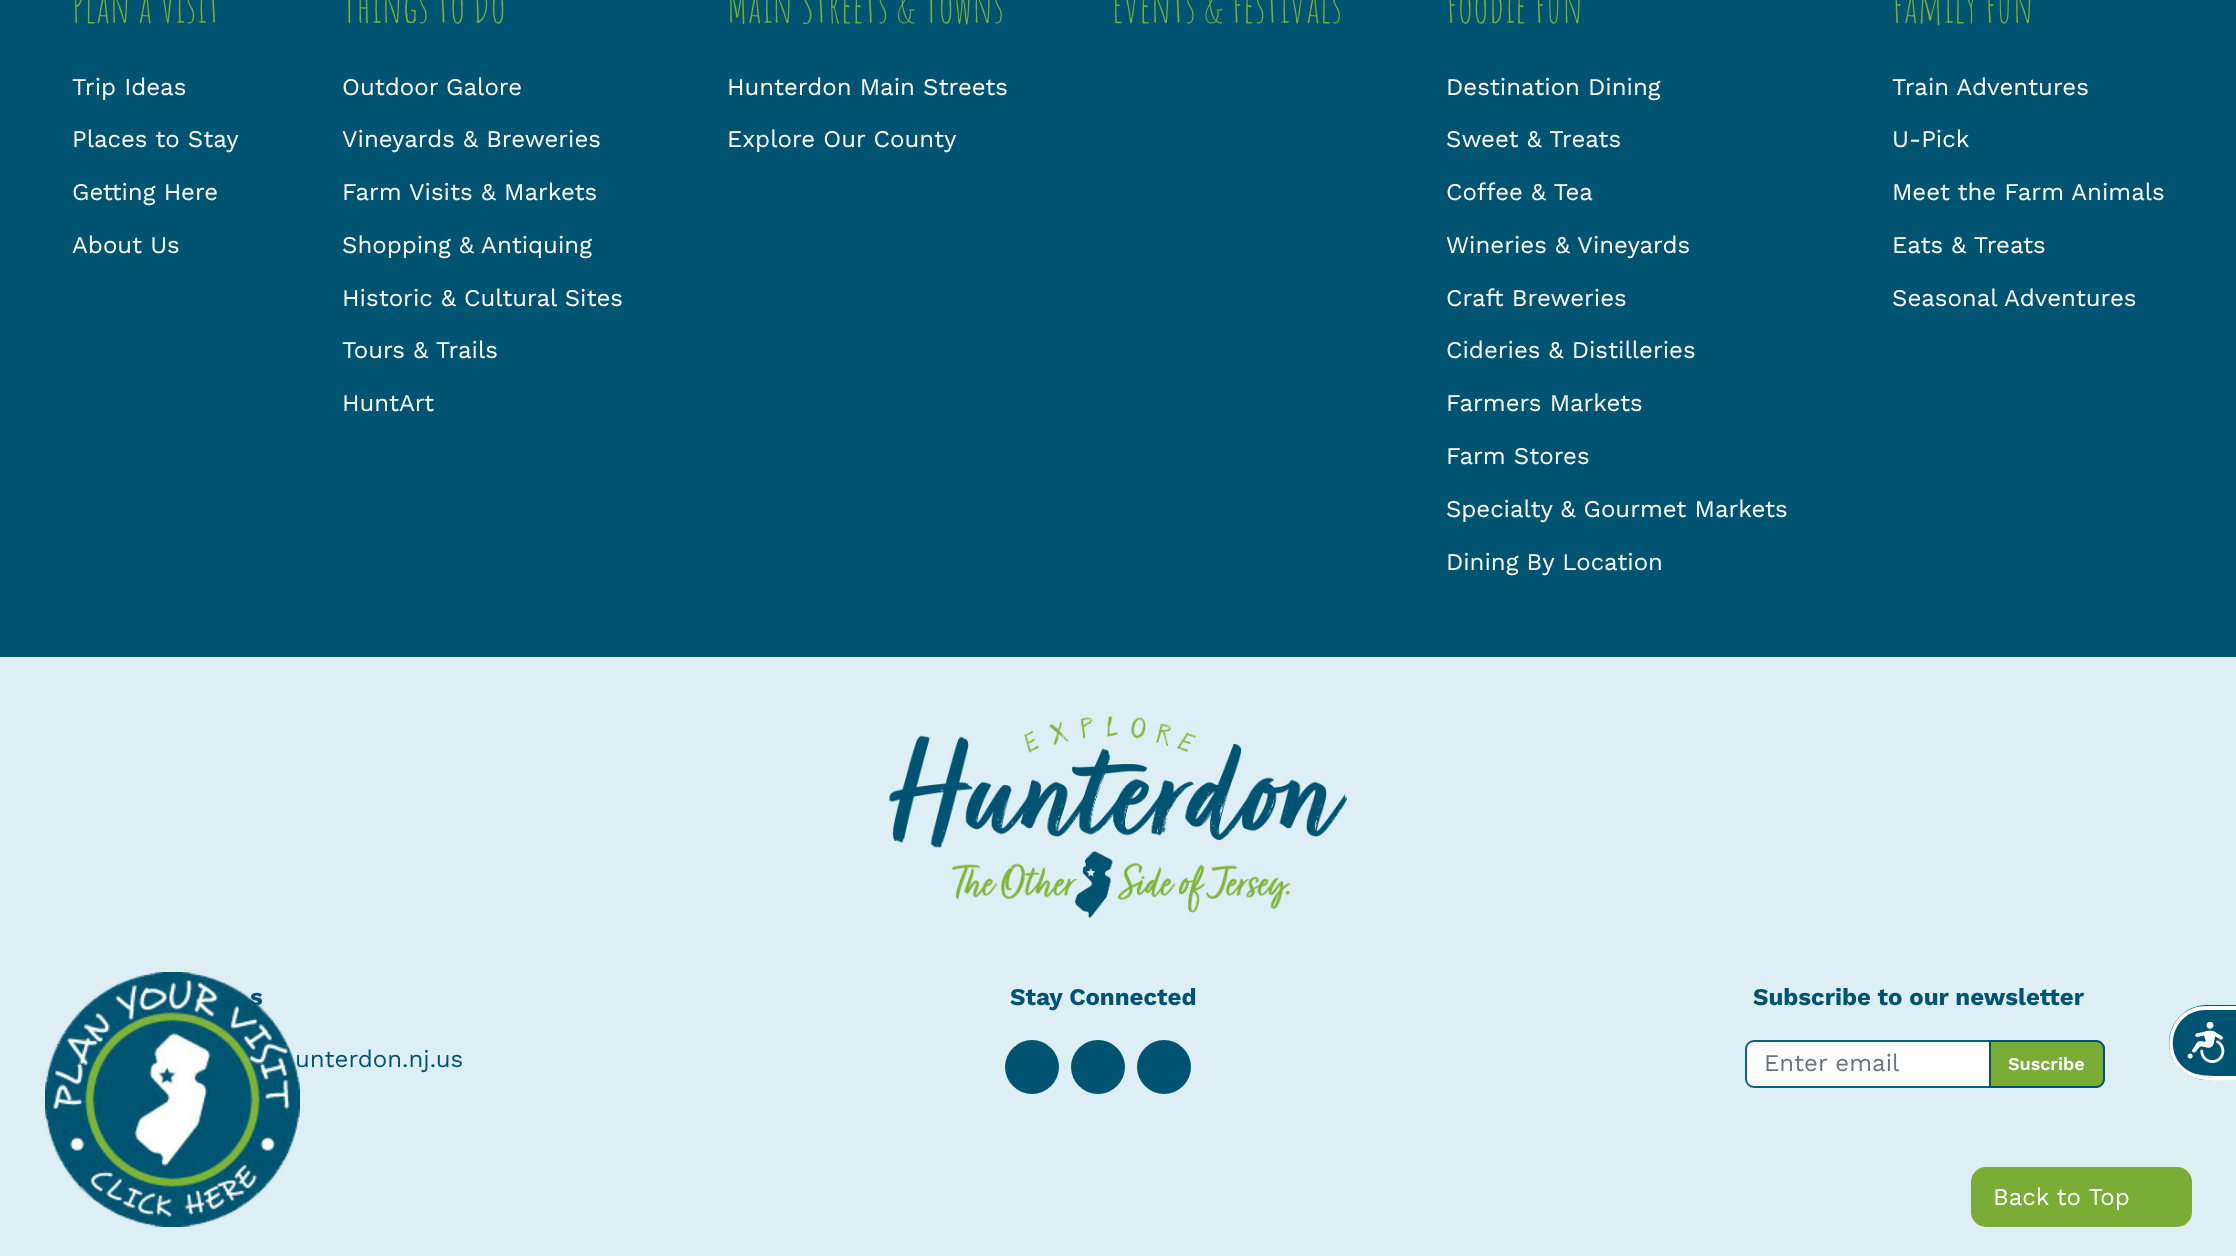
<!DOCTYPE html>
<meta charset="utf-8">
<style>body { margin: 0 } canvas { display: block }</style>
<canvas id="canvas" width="2236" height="1256"></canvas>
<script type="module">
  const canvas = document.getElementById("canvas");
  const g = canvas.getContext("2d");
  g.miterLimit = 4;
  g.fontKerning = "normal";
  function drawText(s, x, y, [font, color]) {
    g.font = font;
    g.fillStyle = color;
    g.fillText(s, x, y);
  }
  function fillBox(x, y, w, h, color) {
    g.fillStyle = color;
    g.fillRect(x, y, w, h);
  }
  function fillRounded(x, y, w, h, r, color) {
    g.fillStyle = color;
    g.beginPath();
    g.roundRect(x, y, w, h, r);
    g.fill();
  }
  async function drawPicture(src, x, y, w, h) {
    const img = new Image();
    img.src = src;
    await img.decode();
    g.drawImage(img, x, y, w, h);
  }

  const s1 = ["45px Amatic SC", "#79AD36"];
  const s2 = ["24px Work Sans", "#FFFFFF"];
  const s3 = ["bold 24px Work Sans", "#005472"];
  const s4 = ["24px Work Sans", "#005472"];
  const s5 = ["24px Work Sans", "#6C757D"];
  const s6 = ["600 18px Work Sans", "#FFFFFF"];

  fillBox(0, 0, 2236, 1256, "#005472");
  drawText("Plan a Visit", 72, 23, s1);
  drawText("Trip Ideas", 72, 95, s2);
  drawText("Places to Stay", 72, 147, s2);
  drawText("Getting Here", 72, 200, s2);
  drawText("About Us", 72, 253, s2);
  drawText("Things to Do", 342, 23, s1);
  drawText("Outdoor Galore", 342, 95, s2);
  drawText("Vineyards & Breweries", 342, 147, s2);
  drawText("Farm Visits & Markets", 342, 200, s2);
  drawText("Shopping & Antiquing", 342, 253, s2);
  drawText("Historic & Cultural Sites", 342, 306, s2);
  drawText("Tours & Trails", 342, 358, s2);
  drawText("HuntArt", 342, 411, s2);
  drawText("Main Streets & Towns", 727, 23, s1);
  drawText("Hunterdon Main Streets", 727, 95, s2);
  drawText("Explore Our County", 727, 147, s2);
  drawText("Events & Festivals", 1112, 23, s1);
  drawText("Foodie Fun", 1446, 23, s1);
  drawText("Destination Dining", 1446, 95, s2);
  drawText("Sweet & Treats", 1446, 147, s2);
  drawText("Coffee & Tea", 1446, 200, s2);
  drawText("Wineries & Vineyards", 1446, 253, s2);
  drawText("Craft Breweries", 1446, 306, s2);
  drawText("Cideries & Distilleries", 1446, 358, s2);
  drawText("Farmers Markets", 1446, 411, s2);
  drawText("Farm Stores", 1446, 464, s2);
  drawText("Specialty & Gourmet Markets", 1446, 517, s2);
  drawText("Dining By Location", 1446, 570, s2);
  drawText("Family Fun", 1892, 23, s1);
  drawText("Train Adventures", 1892, 95, s2);
  drawText("U-Pick", 1892, 147, s2);
  drawText("Meet the Farm Animals", 1892, 200, s2);
  drawText("Eats & Treats", 1892, 253, s2);
  drawText("Seasonal Adventures", 1892, 306, s2);
  fillBox(0, 657, 2236, 599, "#DEEEF5");
  await drawPicture("pic1.png", 889, 716, 458, 202);
  drawText("s", 250, 1005, s3);
  drawText("unterdon.nj.us", 295, 1067, s4);
  drawText("Stay Connected", 1010, 1005, s3);
  g.beginPath();
  g.arc(1032, 1067, 27, 0, Math.PI * 2);
  g.fill();
  g.beginPath();
  g.arc(1098, 1067, 27, 0, Math.PI * 2);
  g.fill();
  g.beginPath();
  g.arc(1164, 1067, 27, 0, Math.PI * 2);
  g.fill();
  drawText("Subscribe to our newsletter", 1753, 1005, s3);
  g.fillStyle = "#FFFFFF";
  g.beginPath();
  g.roundRect(1746, 1041, 358, 46, 8);
  g.fill();
  g.strokeStyle = "#09637E";
  g.lineWidth = 2;
  g.stroke();
  drawText("Enter email", 1764, 1071, s5);
  g.fillStyle = "#79AD36";
  g.beginPath();
  g.roundRect(1990, 1041, 114, 46, [0, 8, 8, 0]);
  g.fill();
  g.strokeStyle = "#005472";
  g.stroke();
  drawText("Suscribe", 2008, 1070, s6);
  await drawPicture("pic2.png", 45, 972, 255, 255);
  g.fillStyle = "#005472";
  g.beginPath();
  g.moveTo(2206.5, 1005);
  g.lineTo(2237, 1005);
  g.lineTo(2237, 1080);
  g.lineTo(2206.5, 1080);
  g.bezierCurveTo(2186, 1080, 2169, 1063, 2169, 1042.5);
  g.bezierCurveTo(2169, 1022, 2186, 1005, 2206.5, 1005);
  g.closePath();
  g.fill();
  g.fillStyle = "#FFFFFF";
  g.beginPath();
  g.moveTo(2206, 1006);
  g.lineTo(2236, 1006);
  g.lineTo(2236, 1080);
  g.bezierCurveTo(2224, 1080, 2203, 1082, 2192, 1077);
  g.bezierCurveTo(2155, 1061, 2166, 1006, 2206, 1006);
  g.closePath();
  g.moveTo(2206, 1010);
  g.lineTo(2236, 1010);
  g.lineTo(2236, 1076);
  g.bezierCurveTo(2225, 1076, 2203, 1077, 2193, 1073);
  g.bezierCurveTo(2160, 1059, 2170, 1010, 2206, 1010);
  g.closePath();
  g.fill("evenodd");
  await drawPicture("pic3.png", 2187, 1022, 38, 41);
  fillRounded(1971, 1167, 221, 60, 15, "#79AD36");
  drawText("Back to Top", 1993, 1205, s2);
</script>
